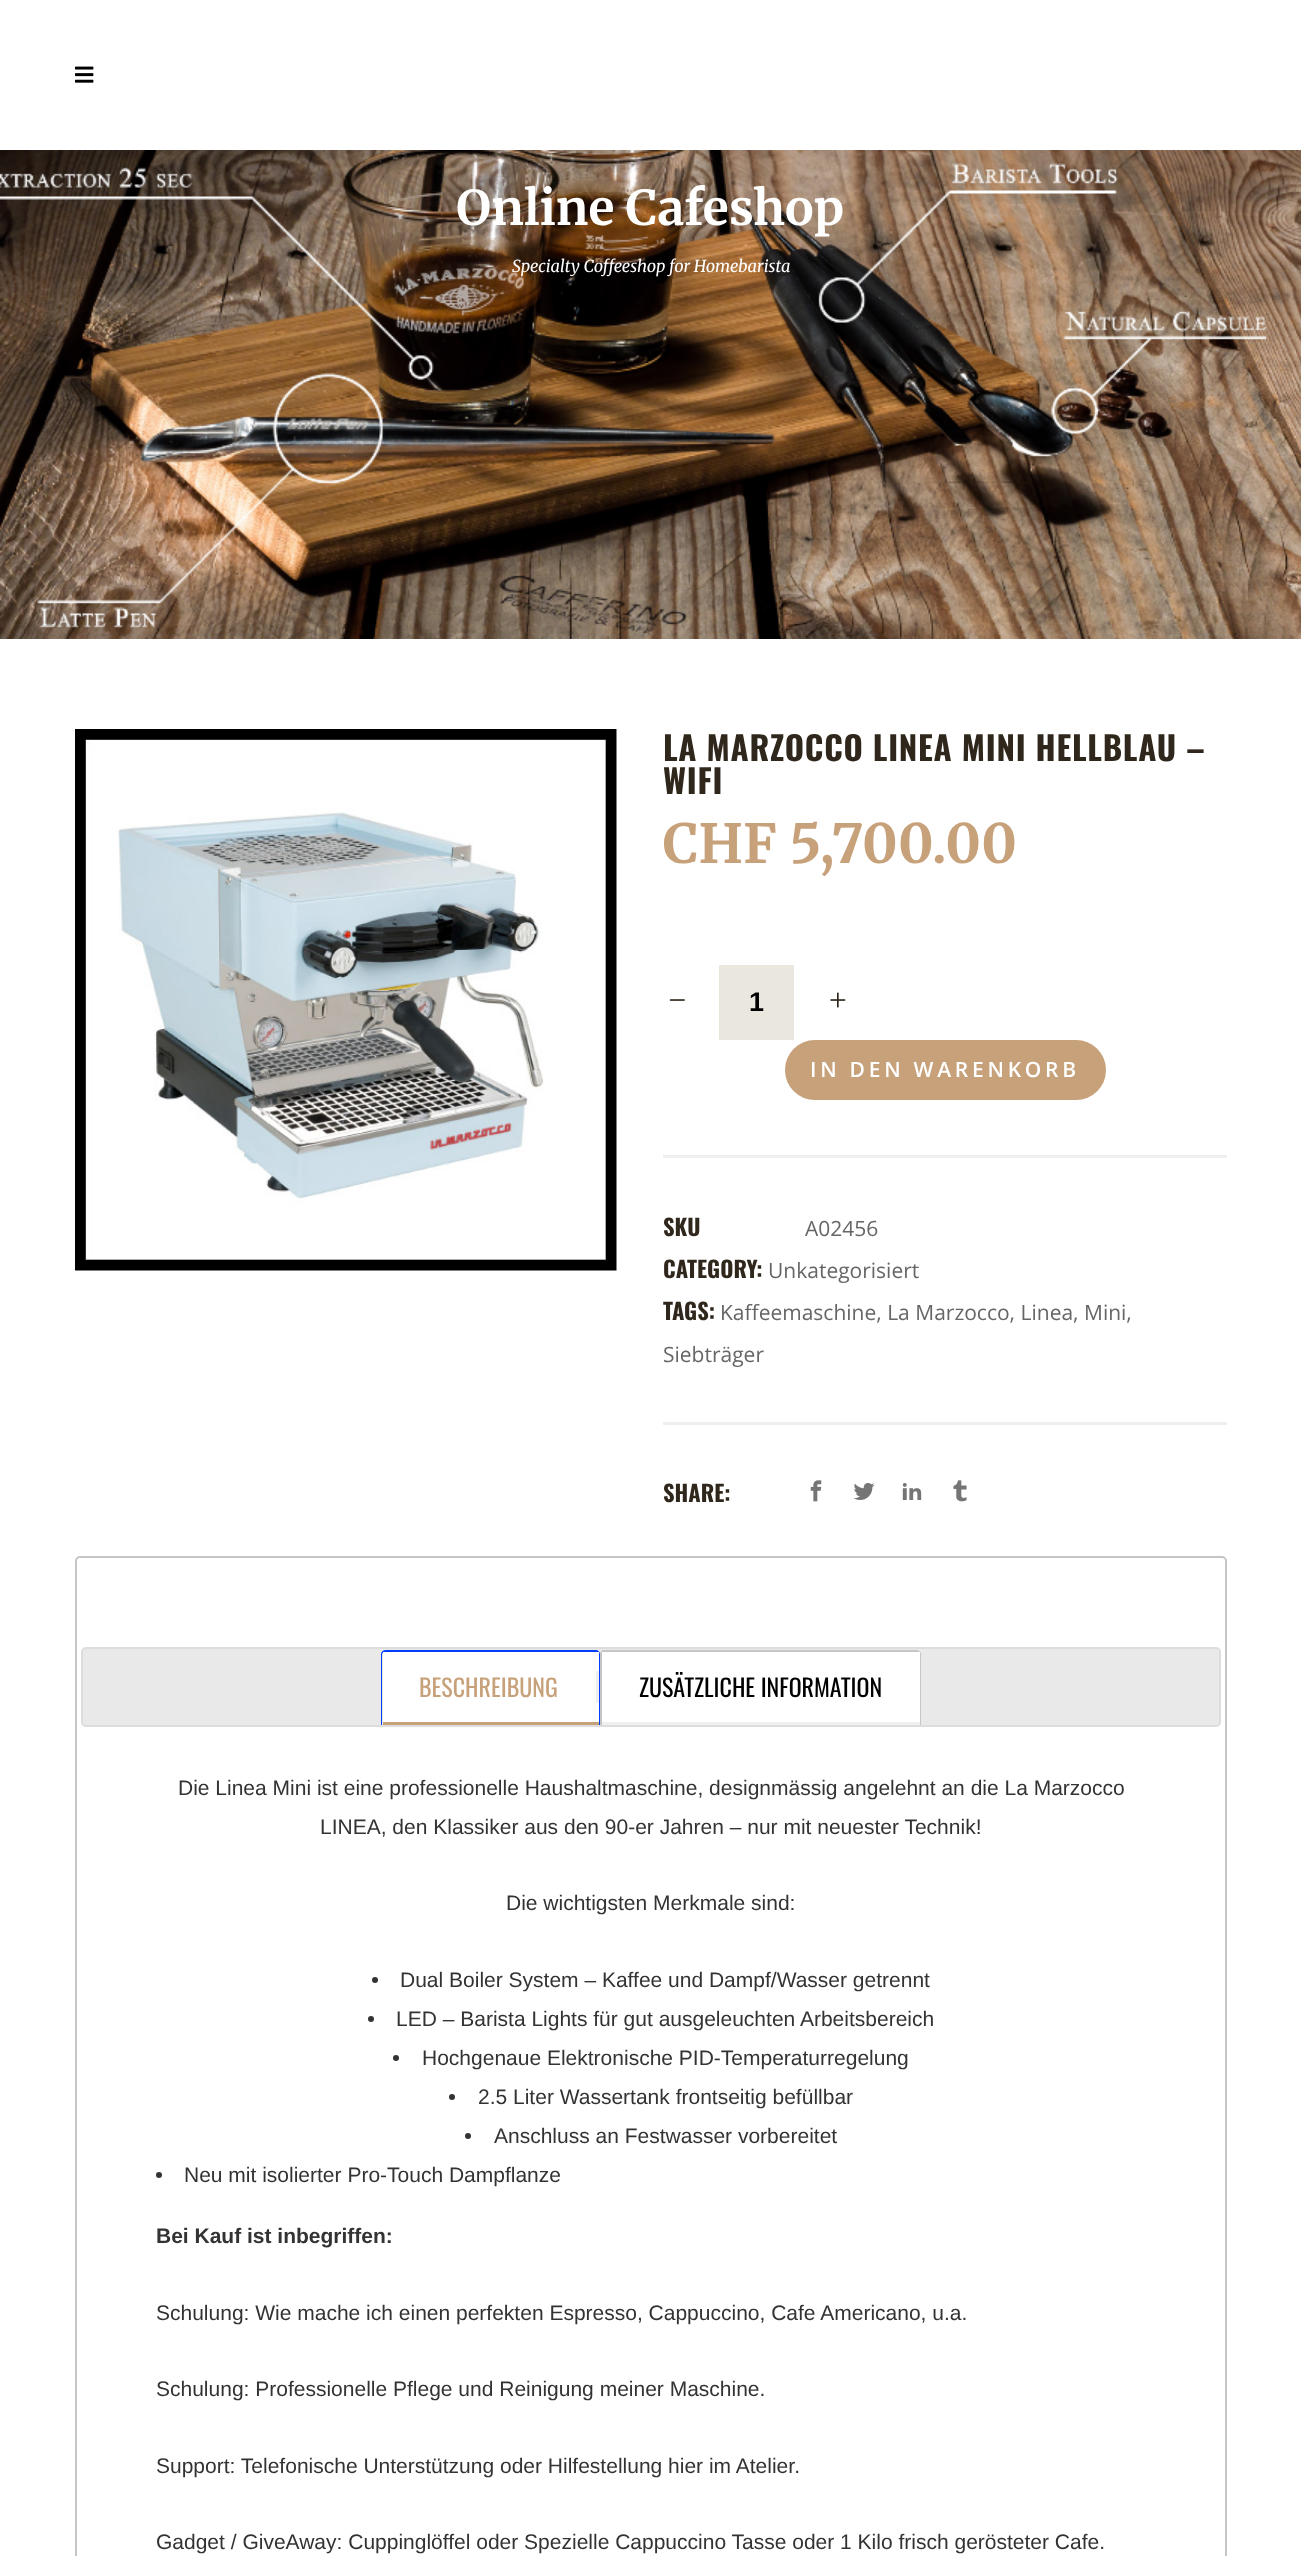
<!DOCTYPE html>
<meta charset="utf-8">
<style>body { margin: 0 } canvas { display: block }</style>
<canvas id="canvas" width="1301" height="2556"></canvas>
<script type="module">
  const canvas = document.getElementById("canvas");
  const g = canvas.getContext("2d");
  g.miterLimit = 4;
  g.fontKerning = "normal";
  function drawText(s, x, y, [font, color]) {
    g.font = font;
    g.fillStyle = color;
    g.fillText(s, x, y);
  }
  function fillBox(x, y, w, h, color) {
    g.fillStyle = color;
    g.fillRect(x, y, w, h);
  }
  async function drawPicture(src, x, y, w, h) {
    const img = new Image();
    img.src = src;
    await img.decode();
    g.drawImage(img, x, y, w, h);
  }

  const s1 = ["300 48px Merriweather", "#FFFFFF"];
  const s2 = ["italic 300 16.5px Merriweather", "#FFFFFF"];
  const s3 = ["bold 33px Oswald", "#30271C"];
  const s4 = ["300 54px Merriweather", "#C7A17A"];
  const s5 = ["bold 27px Liberation Sans", "#000000"];
  const s6 = ["600 21px Open Sans", "#FFFFFF"];
  const s7 = ["bold 22.5px Oswald", "#30271C"];
  const s8 = ["21px Open Sans", "#666666"];
  const s9 = ["24px Oswald", "#C7A17A"];
  const s10 = ["24px Oswald", "#000000"];
  const s11 = ["21px Liberation Sans", "#333333"];
  const s12 = ["bold 21px Liberation Sans", "#333333"];

  fillBox(0, 0, 1301, 2556, "#FFFFFF");
  await drawPicture("pic1.png", 75, 66, 19, 17);
  await drawPicture("pic2.png", 0, 150, 1301, 489);
  drawText("Online Cafeshop", 456, 225, s1);
  drawText("Specialty Coffeeshop for Homebarista", 512, 272, s2);
  await drawPicture("pic3.png", 75, 729, 542, 542);
  g.letterSpacing = "0.75px";
  drawText("LA MARZOCCO LINEA MINI HELLBLAU –", 663, 761, s3);
  drawText("WIFI", 663, 794, s3);
  g.letterSpacing = "0px";
  drawText("CHF 5,700.00", 663, 863, s4);
  fillBox(663, 1155, 564, 3, "#EFEFEF");
  await drawPicture("pic4.png", 669, 999, 16, 2);
  fillBox(719, 965, 75, 75, "#EAE7DE");
  drawText("1", 749, 1011, s5);
  await drawPicture("pic5.png", 830, 992, 16, 16);
  g.fillStyle = "#C7A17A";
  g.beginPath();
  g.roundRect(786.5, 1041.5, 318, 57, 28.5);
  g.fill();
  g.strokeStyle = "#C7A17A";
  g.lineWidth = 3;
  g.stroke();
  g.letterSpacing = "3.75px";
  drawText("IN DEN WARENKORB", 810, 1077, s6);
  g.letterSpacing = "0px";
  drawText("SKU", 663, 1236, s7);
  drawText("A02456", 805, 1236, s8);
  drawText("CATEGORY:", 663, 1278, s7);
  drawText("Unkategorisiert", 768, 1278, s8);
  drawText("TAGS:", 663, 1320, s7);
  drawText("Kaffeemaschine, La Marzocco, Linea, Mini,", 720, 1320, s8);
  drawText("Siebträger", 663, 1362, s8);
  fillBox(663, 1422, 564, 3, "#EFEFEF");
  drawText("SHARE:", 663, 1502, s7);
  await drawPicture("pic6.png", 810, 1480, 12, 22);
  await drawPicture("pic7.png", 853, 1483, 22, 17);
  await drawPicture("pic8.png", 902, 1483, 20, 17);
  await drawPicture("pic9.png", 953, 1480, 14, 22);
  g.beginPath();
  g.roundRect(76, 1557, 1150, 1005, 4);
  g.strokeStyle = "#C5C5C5";
  g.lineWidth = 2;
  g.stroke();
  g.fillStyle = "#E9E9E9";
  g.beginPath();
  g.roundRect(82, 1648, 1138, 78, 4);
  g.fill();
  g.strokeStyle = "#DDDDDD";
  g.stroke();
  g.fillStyle = "#003EFF";
  g.beginPath();
  g.moveTo(386, 1650);
  g.lineTo(596, 1650);
  g.bezierCurveTo(598, 1650, 600, 1652, 600, 1654);
  g.lineTo(600, 1725);
  g.lineTo(598, 1725);
  g.lineTo(598, 1654);
  g.bezierCurveTo(598, 1653, 597, 1652, 596, 1652);
  g.lineTo(386, 1652);
  g.bezierCurveTo(384, 1652, 382, 1653, 382, 1654);
  g.lineTo(382, 1725);
  g.lineTo(381, 1725);
  g.lineTo(381, 1654);
  g.bezierCurveTo(381, 1652, 383, 1650, 386, 1650);
  g.closePath();
  g.fill();
  fillBox(383, 1652, 216, 70, "#FFFFFF");
  fillBox(383, 1722, 216, 3, "#C7A17A");
  fillBox(596, 1671, 3, 32, "#EFEFEF");
  drawText("BESCHREIBUNG", 419, 1697, s9);
  g.fillStyle = "#C5C5C5";
  g.beginPath();
  g.moveTo(604, 1650);
  g.lineTo(916, 1650);
  g.bezierCurveTo(919, 1650, 921, 1652, 921, 1654);
  g.lineTo(921, 1725);
  g.lineTo(600, 1725);
  g.lineTo(600, 1654);
  g.bezierCurveTo(600, 1652, 602, 1650, 604, 1650);
  g.closePath();
  g.moveTo(604, 1652);
  g.lineTo(916, 1652);
  g.bezierCurveTo(918, 1652, 920, 1653, 920, 1654);
  g.lineTo(920, 1725);
  g.lineTo(602, 1725);
  g.lineTo(602, 1654);
  g.bezierCurveTo(602, 1653, 603, 1652, 604, 1652);
  g.closePath();
  g.fill("evenodd");
  fillBox(602, 1652, 318, 70, "#FFFFFF");
  fillBox(602, 1722, 318, 3, "#EFEFEF");
  drawText("ZUSÄTZLICHE INFORMATION", 639, 1697, s10);
  drawText("Die Linea Mini ist eine professionelle Haushaltmaschine, designmässig angelehnt an die La Marzocco", 178, 1795, s11);
  drawText("LINEA, den Klassiker aus den 90-er Jahren – nur mit neuester Technik!", 320, 1834, s11);
  drawText("Die wichtigsten Merkmale sind:", 506, 1910, s11);
  g.beginPath();
  g.arc(375, 1980, 3, 0, Math.PI * 2);
  g.fill();
  drawText("Dual Boiler System – Kaffee und Dampf/Wasser getrennt", 400, 1987, s11);
  g.beginPath();
  g.arc(371, 2019, 3, 0, Math.PI * 2);
  g.fill();
  drawText("LED – Barista Lights für gut ausgeleuchten Arbeitsbereich", 396, 2026, s11);
  g.beginPath();
  g.arc(396, 2058, 3, 0, Math.PI * 2);
  g.fill();
  drawText("Hochgenaue Elektronische PID-Temperaturregelung", 422, 2065, s11);
  g.beginPath();
  g.arc(452, 2097, 3, 0, Math.PI * 2);
  g.fill();
  drawText("2.5 Liter Wassertank frontseitig befüllbar", 478, 2104, s11);
  g.beginPath();
  g.arc(468, 2136, 3, 0, Math.PI * 2);
  g.fill();
  drawText("Anschluss an Festwasser vorbereitet", 494, 2143, s11);
  g.beginPath();
  g.arc(159, 2175, 3, 0, Math.PI * 2);
  g.fill();
  drawText("Neu mit isolierter Pro-Touch Dampflanze", 184, 2182, s11);
  drawText("Bei Kauf ist inbegriffen:", 156, 2243, s12);
  drawText("Schulung: Wie mache ich einen perfekten Espresso, Cappuccino, Cafe Americano, u.a.", 156, 2320, s11);
  drawText("Schulung: Professionelle Pflege und Reinigung meiner Maschine.", 156, 2396, s11);
  drawText("Support: Telefonische Unterstützung oder Hilfestellung hier im Atelier.", 156, 2473, s11);
  drawText("Gadget / GiveAway: Cuppinglöffel oder Spezielle Cappuccino Tasse oder 1 Kilo frisch gerösteter Cafe.", 156, 2549, s11);
</script>
